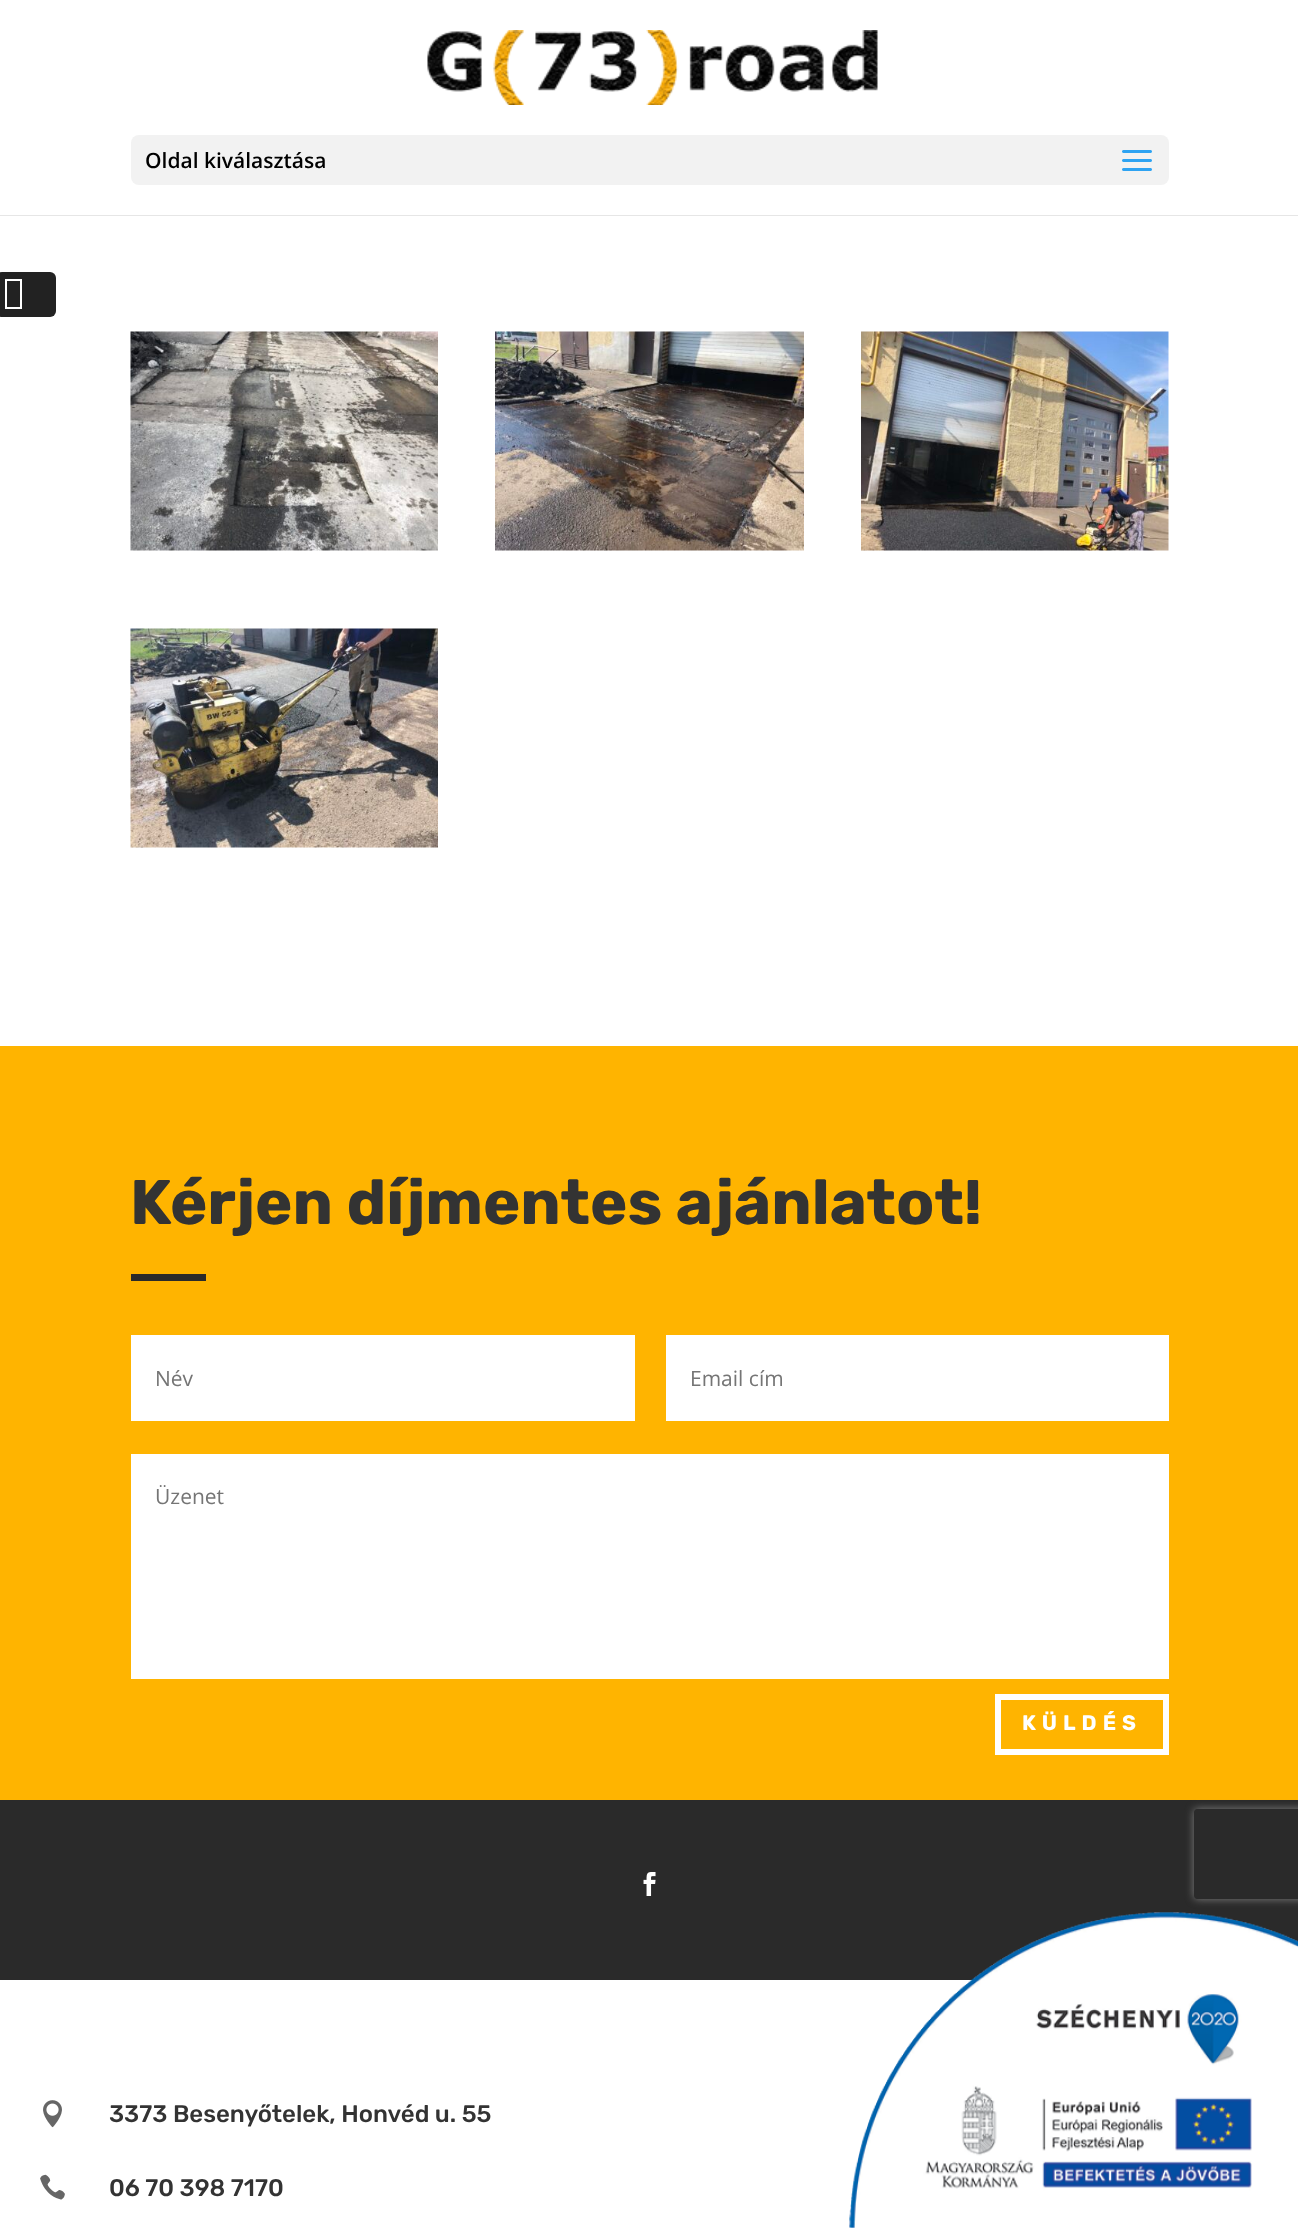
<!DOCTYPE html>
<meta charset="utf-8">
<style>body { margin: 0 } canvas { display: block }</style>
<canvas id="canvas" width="1298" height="2228"></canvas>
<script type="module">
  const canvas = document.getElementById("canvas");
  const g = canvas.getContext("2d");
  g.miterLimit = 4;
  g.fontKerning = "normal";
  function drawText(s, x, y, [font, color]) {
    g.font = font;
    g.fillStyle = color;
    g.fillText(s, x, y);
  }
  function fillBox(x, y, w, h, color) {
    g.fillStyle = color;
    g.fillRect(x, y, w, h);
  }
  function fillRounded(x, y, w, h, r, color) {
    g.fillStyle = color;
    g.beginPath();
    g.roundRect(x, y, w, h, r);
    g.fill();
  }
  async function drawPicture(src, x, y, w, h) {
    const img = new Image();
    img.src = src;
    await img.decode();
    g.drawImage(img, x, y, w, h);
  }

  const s1 = ["600 21px Open Sans", "#000000"];
  const s2 = ["bold 63px Rubik", "#333333"];
  const s3 = ["21px Open Sans", "#757575"];
  const s4 = ["bold 21px Rubik", "#FFFFFF"];
  const s5 = ["500 24px Rubik", "#333333"];

  fillBox(0, 0, 1298, 2228, "#FFFFFF");
  fillRounded(-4, 272, 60, 45, 6, "#222222");
  g.fillStyle = "#FFFFFF";
  g.beginPath();
  g.moveTo(5, 309);
  g.lineTo(5, 279);
  g.lineTo(22, 279);
  g.lineTo(22, 309);
  g.closePath();
  g.moveTo(7, 307);
  g.lineTo(20, 307);
  g.lineTo(20, 281);
  g.lineTo(7, 281);
  g.closePath();
  g.fill();
  fillBox(0, 215, 1298, 1, "#E6E6E6");
  await drawPicture("pic1.png", 427, 30, 451, 75);
  fillRounded(131, 135, 1038, 50, 8, "#F2F2F2");
  drawText("Oldal kiválasztása", 145, 168, s1);
  await drawPicture("pic2.png", 1122, 150, 30, 21);
  await drawPicture("pic3.png", 130, 331, 308, 220);
  await drawPicture("pic4.png", 495, 331, 309, 220);
  await drawPicture("pic5.png", 861, 331, 308, 220);
  await drawPicture("pic6.png", 130, 628, 308, 220);
  fillBox(0, 1046, 1298, 754, "#FFB400");
  drawText("Kérjen díjmentes ajánlatot!", 130, 1224, s2);
  fillBox(131, 1274, 75, 7, "#2A2A2A");
  fillBox(131, 1335, 504, 86, "#FFFFFF");
  drawText("Név", 155, 1386, s3);
  fillBox(666, 1335, 503, 86, "#FFFFFF");
  drawText("Email cím", 690, 1386, s3);
  fillBox(131, 1454, 1038, 225, "#FFFFFF");
  drawText("Üzenet", 155, 1504, s3);
  g.strokeStyle = "#FFFFFF";
  g.lineWidth = 6;
  g.strokeRect(998, 1697, 168, 55);
  g.letterSpacing = "6px";
  drawText("KÜLDÉS", 1022, 1730, s4);
  fillBox(0, 1800, 1298, 180, "#2A2A2A");
  await drawPicture("pic7.png", 643, 1872, 13, 24);
  await drawPicture("pic8.png", 43, 2100, 19, 28);
  g.letterSpacing = "0px";
  drawText("3373 Besenyőtelek, Honvéd u. 55", 109, 2122, s5);
  await drawPicture("pic9.png", 40, 2174, 25, 26);
  drawText("06 70 398 7170", 109, 2196, s5);
  g.save();
  g.beginPath();
  g.moveTo(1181, 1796);
  g.lineTo(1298, 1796);
  g.lineTo(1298, 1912);
  g.lineTo(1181, 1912);
  g.closePath();
  g.moveTo(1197, 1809);
  g.lineTo(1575, 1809);
  g.bezierCurveTo(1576.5, 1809, 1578, 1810.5, 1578, 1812);
  g.lineTo(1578, 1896);
  g.bezierCurveTo(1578, 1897.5, 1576.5, 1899, 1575, 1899);
  g.lineTo(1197, 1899);
  g.bezierCurveTo(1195.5, 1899, 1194, 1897.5, 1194, 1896);
  g.lineTo(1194, 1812);
  g.bezierCurveTo(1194, 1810.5, 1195.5, 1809, 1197, 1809);
  g.closePath();
  g.clip("evenodd");
  g.fillStyle = "#808080";
  g.filter = "blur(4px)";
  g.beginPath();
  g.roundRect(1194, 1809, 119, 90, 3);
  g.fill();
  g.filter = "none";
  g.restore();
  await drawPicture("pic10.png", 849, 1912, 449, 316);
  await drawPicture("pic11.png", 849, 1912, 449, 316);
</script>
